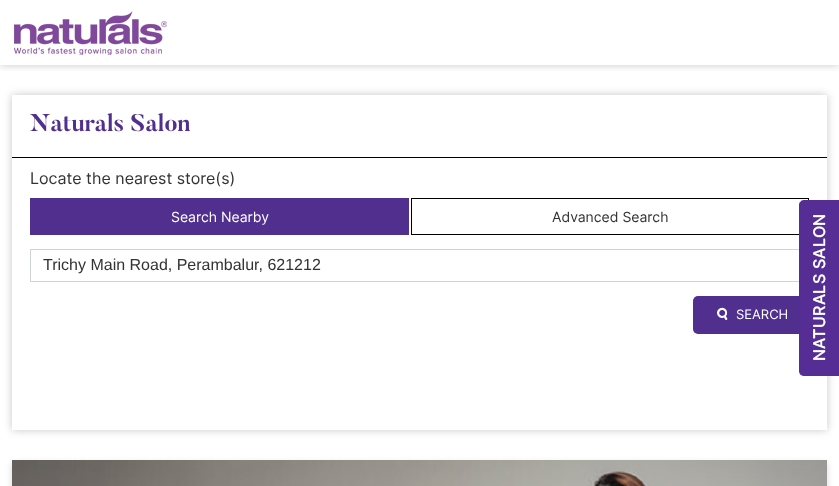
<!DOCTYPE html>
<meta charset="utf-8">
<style>body { margin: 0 } canvas { display: block }</style>
<canvas id="canvas" width="839" height="486"></canvas>
<script type="module">
  const canvas = document.getElementById("canvas");
  const g = canvas.getContext("2d");
  g.miterLimit = 4;
  g.fontKerning = "normal";
  function drawText(s, x, y, [font, color]) {
    g.font = font;
    g.fillStyle = color;
    g.fillText(s, x, y);
  }
  function fillBox(x, y, w, h, color) {
    g.fillStyle = color;
    g.fillRect(x, y, w, h);
  }
  function fillRounded(x, y, w, h, r, color) {
    g.fillStyle = color;
    g.beginPath();
    g.roundRect(x, y, w, h, r);
    g.fill();
  }
  async function drawPicture(src, x, y, w, h) {
    const img = new Image();
    img.src = src;
    await img.decode();
    g.drawImage(img, x, y, w, h);
  }

  const s1 = ["bold 24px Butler", "#502F8F"];
  const s2 = ["16px Inter", "#333333"];
  const s3 = ["14px Inter", "#FFFFFF"];
  const s4 = ["14px Inter", "#333333"];
  const s5 = ["16px Liberation Sans", "#333333"];
  const s6 = ["13px Inter", "#FFFFFF"];

  fillBox(0, 0, 839, 486, "#FFFFFF");
  g.save();
  g.beginPath();
  g.rect(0, 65, 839, 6);
  g.clip();
  g.fillStyle = "rgba(0, 0, 0, 0.22)";
  g.filter = "blur(4.5px)";
  g.beginPath();
  g.rect(0, 0, 839, 65);
  g.fill();
  g.filter = "none";
  g.restore();
  await drawPicture("pic1.png", 14, 11, 153, 44);
  g.save();
  g.beginPath();
  g.moveTo(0, 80);
  g.lineTo(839, 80);
  g.lineTo(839, 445);
  g.lineTo(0, 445);
  g.closePath();
  g.moveTo(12, 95);
  g.lineTo(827, 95);
  g.lineTo(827, 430);
  g.lineTo(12, 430);
  g.closePath();
  g.clip("evenodd");
  g.fillStyle = "rgba(0, 0, 0, 0.22)";
  g.filter = "blur(4.5px)";
  g.beginPath();
  g.rect(12, 95, 815, 335);
  g.fill();
  g.filter = "none";
  g.restore();
  g.strokeStyle = "#000000";
  g.strokeRect(411.5, 198.5, 397, 36);
  g.strokeStyle = "#CED4DA";
  g.strokeRect(30.5, 249.5, 778, 32);
  fillRounded(693, 296, 116, 38, 5, "#502F8F");
  await drawPicture("pic2.png", 799, 200, 40, 176);
  fillBox(12, 157, 815, 1, "#000000");
  drawText("Naturals Salon", 30, 131, s1);
  drawText("Locate the nearest store(s)", 30, 184, s2);
  fillBox(30, 198, 379, 37, "#502F8F");
  drawText("Search Nearby", 171, 222, s3);
  drawText("Advanced Search", 552, 222, s4);
  drawText("Trichy Main Road, Perambalur, 621212", 43, 270, s5);
  await drawPicture("pic3.png", 717, 307, 11, 13);
  drawText("SEARCH", 736, 319, s6);
  g.fillStyle = "rgba(0, 0, 0, 0.16)";
  g.filter = "blur(3px)";
  g.beginPath();
  g.rect(12, 463, 815, 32);
  g.fill();
  g.filter = "none";
  await drawPicture("pic4.png", 12, 460, 815, 26);
</script>
